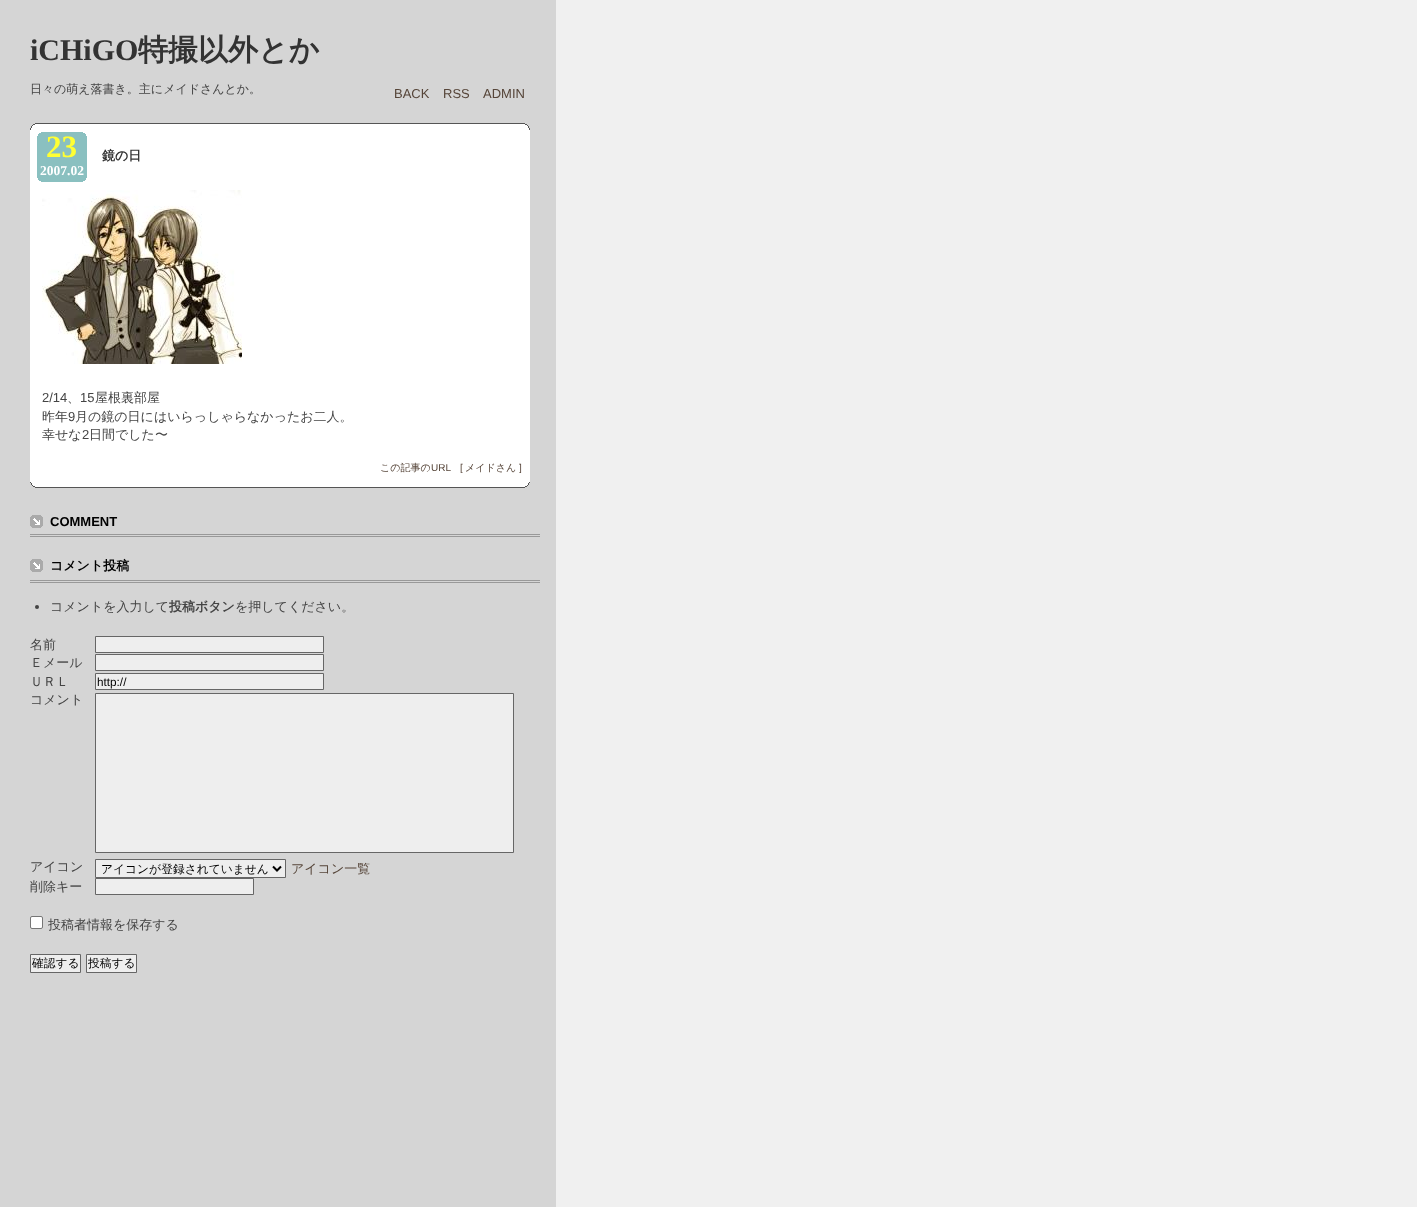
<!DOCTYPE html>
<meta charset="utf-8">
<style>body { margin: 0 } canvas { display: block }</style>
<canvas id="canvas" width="1417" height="1207"></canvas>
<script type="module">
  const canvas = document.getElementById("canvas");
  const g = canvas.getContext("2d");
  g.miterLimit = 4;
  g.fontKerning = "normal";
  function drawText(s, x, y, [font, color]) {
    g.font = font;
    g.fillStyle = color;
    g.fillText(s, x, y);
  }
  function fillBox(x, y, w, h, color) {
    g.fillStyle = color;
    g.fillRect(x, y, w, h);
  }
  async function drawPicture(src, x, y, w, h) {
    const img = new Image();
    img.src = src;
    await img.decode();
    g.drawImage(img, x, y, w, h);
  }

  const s1 = ["bold 30px Liberation Serif", "#333333"];
  const s2 = ["bold 30px WenQuanYi Zen Hei", "#333333"];
  const s3 = ["500 12px WenQuanYi Zen Hei", "#444444"];
  const s4 = ["13px Liberation Sans", "#564539"];
  const s5 = ["bold 31px Liberation Serif", "#FFFF33"];
  const s6 = ["bold 13.5px Liberation Serif", "#FFFFFF"];
  const s7 = ["bold 13px WenQuanYi Zen Hei", "#333333"];
  const s8 = ["13px Liberation Sans", "#444444"];
  const s9 = ["500 13px WenQuanYi Zen Hei", "#444444"];
  const s10 = ["500 10px WenQuanYi Zen Hei", "#564539"];
  const s11 = ["10px Liberation Sans", "#564539"];
  const s12 = ["bold 13px Liberation Sans", "#000000"];
  const s13 = ["bold 13px WenQuanYi Zen Hei", "#000000"];
  const s14 = ["bold 13px WenQuanYi Zen Hei", "#444444"];
  const s15 = ["11.75px Liberation Sans", "#000000"];
  const s16 = ["500 11.75px WenQuanYi Zen Hei", "#000000"];
  const s17 = ["500 13px WenQuanYi Zen Hei", "#564539"];

  fillBox(0, 0, 1417, 1207, "#F0F0F0");
  fillBox(0, 0, 556, 1207, "#D5D5D5");
  drawText("iCHiGO", 30, 60, s1);
  drawText("特撮以外とか", 138, 60, s2);
  drawText("日々の萌え落書き。主にメイドさんとか。", 30, 93, s3);
  drawText("BACK", 394, 98, s4);
  drawText("RSS", 443, 98, s4);
  drawText("ADMIN", 483, 98, s4);
  await drawPicture("pic1.png", 30, 123, 500, 7);
  fillBox(30, 130, 500, 352, "#FFFFFF");
  await drawPicture("pic2.png", 37, 132, 50, 50);
  drawText("23", 46, 157, s5);
  drawText("2007.02", 40, 175, s6);
  drawText("鏡の日", 102, 160, s7);
  await drawPicture("pic3.png", 42, 190, 200, 174);
  drawText("2/14", 42, 402, s8);
  drawText("、", 67, 402, s9);
  drawText("15", 80, 402, s8);
  drawText("屋根裏部屋", 95, 402, s9);
  drawText("昨年", 42, 421, s9);
  drawText("9", 68, 421, s8);
  drawText("月の鏡の日にはいらっしゃらなかったお二人。", 75, 421, s9);
  drawText("幸せな", 42, 439, s9);
  drawText("2", 82, 439, s8);
  drawText("日間でした〜", 89, 439, s9);
  drawText("この記事の", 380, 471, s10);
  drawText("URL", 431, 471, s11);
  drawText("[", 460, 471, s11);
  drawText("メイドさん", 465, 471, s10);
  drawText("]", 519, 471, s11);
  await drawPicture("pic4.png", 30, 482, 500, 6);
  await drawPicture("pic5.png", 30, 515, 13, 13);
  fillBox(30, 534, 510, 1, "#999999");
  fillBox(30, 536, 510, 1, "#999999");
  drawText("COMMENT", 50, 526, s12);
  await drawPicture("pic5.png", 30, 559, 13, 13);
  fillBox(30, 580, 510, 1, "#999999");
  fillBox(30, 582, 510, 1, "#999999");
  drawText("コメント投稿", 50, 570, s13);
  g.fillStyle = "#444444";
  g.beginPath();
  g.arc(37, 607, 2, 0, Math.PI * 2);
  g.fill();
  drawText("コメントを入力して", 50, 611, s9);
  drawText("投稿ボタン", 169, 611, s14);
  drawText("を押してください。", 235, 611, s9);
  drawText("名前", 30, 649, s9);
  g.fillStyle = "#EEEEEE";
  g.beginPath();
  g.rect(95.5, 636.5, 228, 16);
  g.fill();
  g.strokeStyle = "#666666";
  g.stroke();
  drawText("Ｅメール", 30, 667, s9);
  g.fillStyle = "#EEEEEE";
  g.beginPath();
  g.rect(95.5, 654.5, 228, 16);
  g.fill();
  g.stroke();
  drawText("ＵＲＬ", 30, 686, s9);
  g.fillStyle = "#EEEEEE";
  g.beginPath();
  g.rect(95.5, 673.5, 228, 16);
  g.fill();
  g.stroke();
  drawText("http://", 97, 686, s15);
  drawText("コメント", 30, 704, s9);
  g.fillStyle = "#EEEEEE";
  g.beginPath();
  g.rect(95.5, 693.5, 418, 159);
  g.fill();
  g.stroke();
  drawText("アイコン", 30, 871, s9);
  g.fillStyle = "#EEEEEE";
  g.beginPath();
  g.rect(95.5, 859.5, 190, 18);
  g.fill();
  g.stroke();
  g.beginPath();
  g.moveTo(273, 866.5);
  g.lineTo(277, 870.5);
  g.lineTo(281, 866.5);
  g.strokeStyle = "#000000";
  g.lineWidth = 2;
  g.stroke();
  drawText("アイコンが登録されていません", 101, 873, s16);
  drawText("アイコン一覧", 291, 873, s17);
  drawText("削除キー", 30, 891, s9);
  g.fillStyle = "#EEEEEE";
  g.beginPath();
  g.rect(95.5, 878.5, 158, 16);
  g.fill();
  g.strokeStyle = "#666666";
  g.lineWidth = 1;
  g.stroke();
  g.fillStyle = "#FFFFFF";
  g.beginPath();
  g.roundRect(30.5, 916.5, 12, 12, 1.5);
  g.fill();
  g.strokeStyle = "#767676";
  g.stroke();
  drawText("投稿者情報を保存する", 48, 929, s9);
  g.fillStyle = "#EEEEEE";
  g.beginPath();
  g.rect(30.5, 954.5, 50, 18);
  g.fill();
  g.strokeStyle = "#666666";
  g.stroke();
  drawText("確認する", 32, 967, s16);
  g.fillStyle = "#EEEEEE";
  g.beginPath();
  g.rect(86.5, 954.5, 50, 18);
  g.fill();
  g.stroke();
  drawText("投稿する", 88, 967, s16);
</script>
